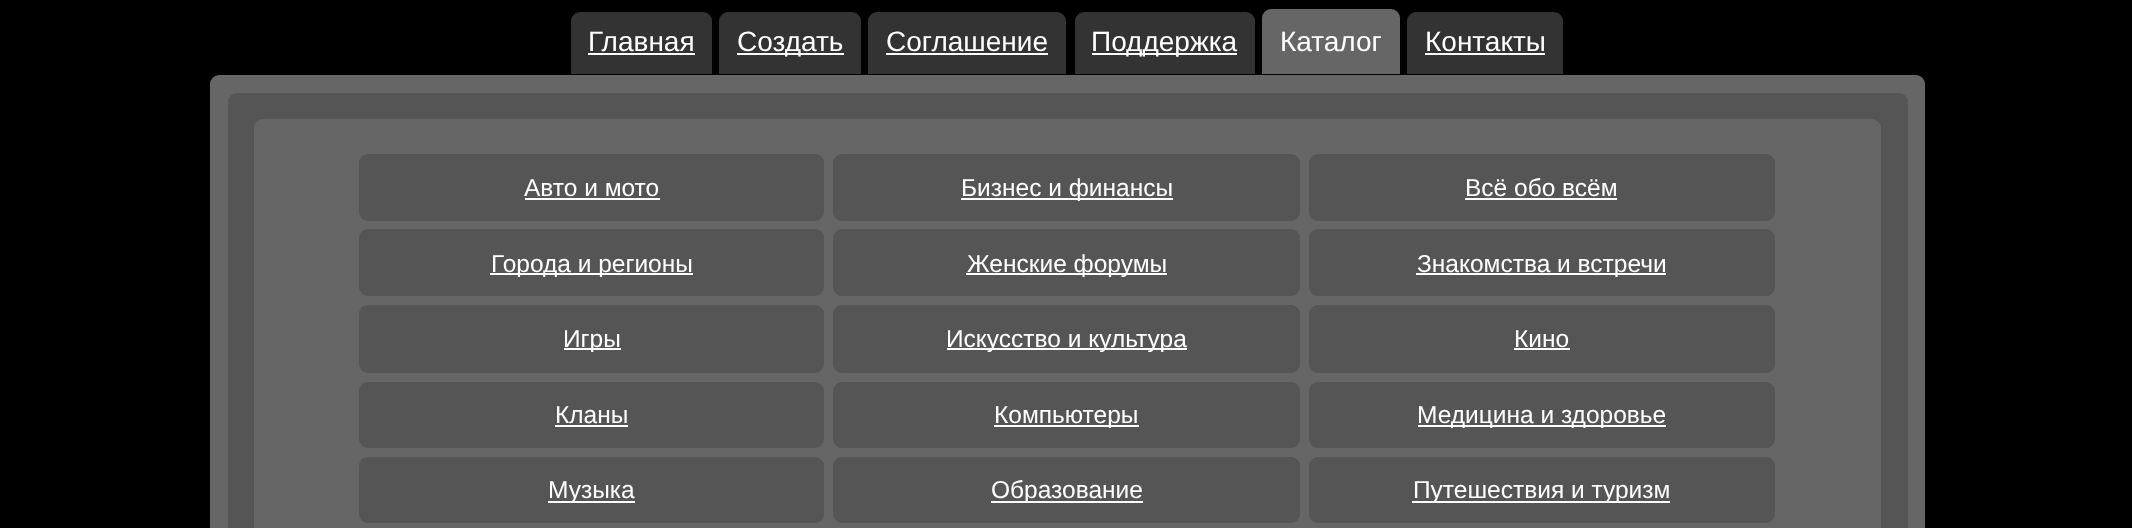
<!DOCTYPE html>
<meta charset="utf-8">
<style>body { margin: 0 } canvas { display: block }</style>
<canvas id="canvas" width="2132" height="528"></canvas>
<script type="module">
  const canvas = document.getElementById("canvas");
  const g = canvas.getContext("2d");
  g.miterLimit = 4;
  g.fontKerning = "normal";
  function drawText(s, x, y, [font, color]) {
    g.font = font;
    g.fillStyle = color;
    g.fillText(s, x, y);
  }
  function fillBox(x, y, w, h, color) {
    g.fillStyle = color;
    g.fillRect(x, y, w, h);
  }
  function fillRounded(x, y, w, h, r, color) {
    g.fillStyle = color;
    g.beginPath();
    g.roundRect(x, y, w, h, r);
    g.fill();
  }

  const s1 = ["28px Liberation Sans", "#FFFFFF"];
  const s2 = ["24.5px Liberation Sans", "#FFFFFF"];

  fillBox(0, 0, 2132, 528, "#000000");
  g.fillStyle = "#333333";
  g.beginPath();
  g.roundRect(571, 12, 141, 62, [9, 9, 0, 0]);
  g.fill();
  drawText("Главная", 588, 51, s1);
  fillBox(588, 53, 107, 2, "#FFFFFF");
  g.fillStyle = "#333333";
  g.beginPath();
  g.roundRect(719, 12, 142, 62, [9, 9, 0, 0]);
  g.fill();
  fillBox(737, 53, 107, 2, "#FFFFFF");
  drawText("Создать", 737, 51, s1);
  g.fillStyle = "#333333";
  g.beginPath();
  g.roundRect(868, 12, 198, 62, [9, 9, 0, 0]);
  g.fill();
  drawText("Соглашение", 886, 51, s1);
  fillBox(886, 53, 162, 2, "#FFFFFF");
  g.fillStyle = "#333333";
  g.beginPath();
  g.roundRect(1075, 12, 180, 62, [9, 9, 0, 0]);
  g.fill();
  fillBox(1092, 53, 145, 2, "#FFFFFF");
  drawText("Поддержка", 1091, 51, s1);
  g.fillStyle = "#666666";
  g.beginPath();
  g.roundRect(1262, 9, 138, 65, [9, 9, 0, 0]);
  g.fill();
  drawText("Каталог", 1280, 51, s1);
  g.fillStyle = "#333333";
  g.beginPath();
  g.roundRect(1407, 12, 156, 62, [9, 9, 0, 0]);
  g.fill();
  drawText("Контакты", 1425, 51, s1);
  fillBox(1425, 53, 120, 2, "#FFFFFF");
  fillRounded(210, 75, 1715, 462, 9, "#666666");
  fillRounded(228, 93, 1680, 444, 9, "#555555");
  fillRounded(254, 119, 1627, 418, 9, "#666666");
  fillRounded(359, 154, 465, 67, 9, "#555555");
  drawText("Авто и мото", 524, 196, s2);
  fillBox(525, 198, 135, 2, "#FFFFFF");
  fillRounded(833, 154, 467, 67, 9, "#555555");
  fillBox(961, 198, 212, 2, "#FFFFFF");
  drawText("Бизнес и финансы", 961, 196, s2);
  fillRounded(1309, 154, 466, 67, 9, "#555555");
  drawText("Всё обо всём", 1465, 196, s2);
  fillBox(1465, 198, 152, 2, "#FFFFFF");
  fillRounded(359, 229, 465, 67, 9, "#555555");
  fillBox(490, 273, 203, 2, "#FFFFFF");
  drawText("Города и регионы", 491, 272, s2);
  fillRounded(833, 229, 467, 67, 9, "#555555");
  fillBox(966, 273, 201, 2, "#FFFFFF");
  drawText("Женские форумы", 967, 272, s2);
  fillRounded(1309, 229, 466, 67, 9, "#555555");
  fillBox(1416, 273, 250, 2, "#FFFFFF");
  drawText("Знакомства и встречи", 1417, 272, s2);
  fillRounded(359, 305, 465, 68, 9, "#555555");
  fillBox(564, 348, 57, 2, "#FFFFFF");
  drawText("Игры", 563, 347, s2);
  fillRounded(833, 305, 467, 68, 9, "#555555");
  fillBox(947, 348, 240, 2, "#FFFFFF");
  drawText("Искусство и культура", 946, 347, s2);
  fillRounded(1309, 305, 466, 68, 9, "#555555");
  drawText("Кино", 1514, 347, s2);
  fillBox(1514, 348, 56, 2, "#FFFFFF");
  fillRounded(359, 382, 465, 66, 9, "#555555");
  drawText("Кланы", 555, 423, s2);
  fillBox(555, 425, 73, 2, "#FFFFFF");
  fillRounded(833, 382, 467, 66, 9, "#555555");
  fillBox(994, 425, 145, 2, "#FFFFFF");
  drawText("Компьютеры", 994, 423, s2);
  fillRounded(1309, 382, 466, 66, 9, "#555555");
  fillBox(1418, 425, 248, 2, "#FFFFFF");
  drawText("Медицина и здоровье", 1417, 423, s2);
  fillRounded(359, 457, 465, 66, 9, "#555555");
  fillBox(548, 501, 87, 2, "#FFFFFF");
  drawText("Музыка", 548, 498, s2);
  fillRounded(833, 457, 467, 66, 9, "#555555");
  fillBox(991, 501, 152, 2, "#FFFFFF");
  drawText("Образование", 991, 498, s2);
  fillRounded(1309, 457, 466, 66, 9, "#555555");
  fillBox(1412, 501, 258, 2, "#FFFFFF");
  drawText("Путешествия и туризм", 1413, 498, s2);
</script>
